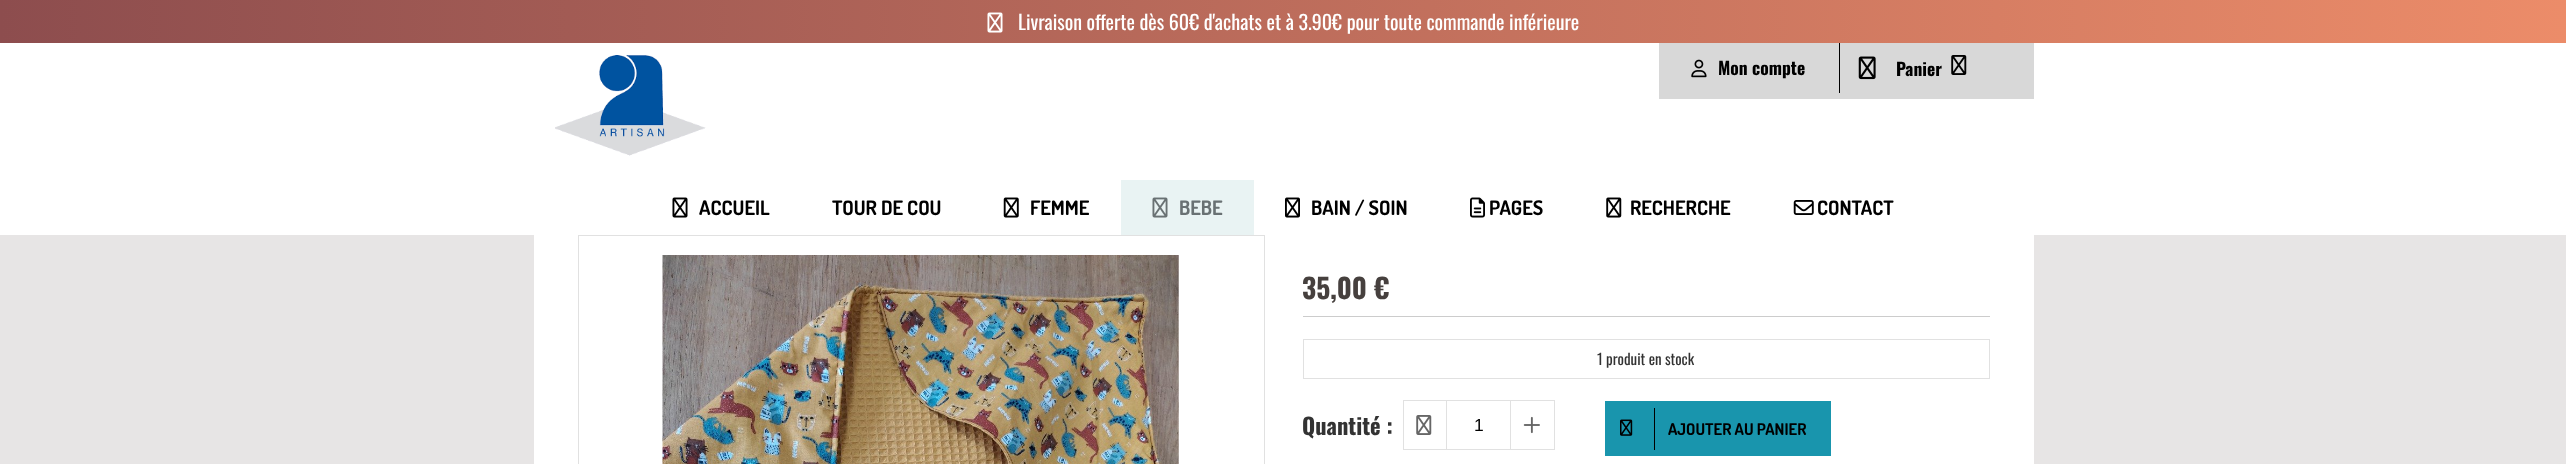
<!DOCTYPE html>
<meta charset="utf-8">
<style>body { margin: 0 } canvas { display: block }</style>
<canvas id="canvas" width="2566" height="464"></canvas>
<script type="module">
  const canvas = document.getElementById("canvas");
  const g = canvas.getContext("2d");
  g.miterLimit = 4;
  g.fontKerning = "normal";
  function drawText(s, x, y, [font, color]) {
    g.font = font;
    g.fillStyle = color;
    g.fillText(s, x, y);
  }
  function fillBox(x, y, w, h, color) {
    g.fillStyle = color;
    g.fillRect(x, y, w, h);
  }
  async function drawPicture(src, x, y, w, h) {
    const img = new Image();
    img.src = src;
    await img.decode();
    g.drawImage(img, x, y, w, h);
  }
  let gradient;

  const s1 = ["20px Oswald", "#FFFFFF"];
  const s2 = ["bold 17.5px Oswald", "#000000"];
  const s3 = ["bold 20px Dosis", "#000000"];
  const s4 = ["bold 20px Dosis", "#697173"];
  const s5 = ["bold 27.5px Oswald", "#46403E"];
  const s6 = ["15px Oswald", "#333333"];
  const s7 = ["bold 22.5px Oswald", "#333333"];
  const s8 = ["17.5px Liberation Sans", "#000000"];
  const s9 = ["bold 16.25px Dosis", "#000000"];

  fillBox(0, 0, 2566, 464, "#E7E5E5");
  gradient = g.createLinearGradient(0, 21, 2566, 21);
  gradient.addColorStop(0, "#8D4D4E");
  gradient.addColorStop(1, "#EC8C69");
  g.fillStyle = gradient;
  g.fillRect(0, 0, 2566, 43);
  await drawPicture("pic1.png", 987, 12, 16, 21);
  drawText("Livraison offerte dès 60€ d'achats et à 3.90€ pour toute commande inférieure", 1018, 30, s1);
  fillBox(0, 43, 2566, 192, "#FFFFFF");
  await drawPicture("pic2.png", 555, 55, 151, 101);
  fillBox(1659, 43, 375, 56, "#D8D8D8");
  fillBox(1839, 43, 1, 50, "#000000");
  await drawPicture("pic3.png", 1691, 59, 16, 19);
  drawText("Mon compte", 1718, 75, s2);
  await drawPicture("pic4.png", 1858, 56, 18, 24);
  drawText("Panier", 1896, 76, s2);
  await drawPicture("pic5.png", 1951, 55, 16, 20);
  await drawPicture("pic6.png", 672, 197, 16, 21);
  drawText("ACCUEIL", 699, 215, s3);
  drawText("TOUR DE COU", 832, 215, s3);
  await drawPicture("pic7.png", 1003, 197, 16, 21);
  drawText("FEMME", 1030, 215, s3);
  fillBox(1121, 180, 133, 55, "#E9F3F3");
  await drawPicture("pic8.png", 1152, 197, 16, 21);
  drawText("BEBE", 1179, 215, s4);
  await drawPicture("pic9.png", 1285, 197, 15, 21);
  drawText("BAIN / SOIN", 1311, 215, s3);
  await drawPicture("pic10.png", 1470, 197, 15, 21);
  drawText("PAGES", 1489, 215, s3);
  await drawPicture("pic11.png", 1606, 197, 16, 21);
  drawText("RECHERCHE", 1630, 215, s3);
  await drawPicture("pic12.png", 1793, 200, 21, 15);
  drawText("CONTACT", 1817, 215, s3);
  fillBox(534, 235, 1500, 229, "#FFFFFF");
  g.strokeStyle = "#E1E1E1";
  g.strokeRect(578.5, 235.5, 686, 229);
  await drawPicture("pic13.png", 662, 255, 517, 209);
  fillBox(1303, 316, 687, 1, "#CCCCCC");
  drawText("35,00 €", 1302, 299, s5);
  g.strokeRect(1303.5, 339.5, 686, 39);
  drawText("1 produit en stock", 1597, 365, s6);
  drawText("Quantité :", 1302, 435, s7);
  fillBox(1403, 400, 43, 1, "#E1E1E1");
  fillBox(1403, 449, 43, 1, "#E1E1E1");
  fillBox(1403, 400, 1, 50, "#E1E1E1");
  await drawPicture("pic14.png", 1416, 415, 16, 20);
  g.strokeRect(1446.5, 400.5, 64, 49);
  drawText("1", 1474, 431, s8);
  fillBox(1511, 400, 44, 1, "#E1E1E1");
  fillBox(1554, 400, 1, 50, "#E1E1E1");
  fillBox(1511, 449, 44, 1, "#E1E1E1");
  await drawPicture("pic15.png", 1523, 416, 17, 18);
  fillBox(1605, 401, 226, 55, "#1995AD");
  fillBox(1654, 408, 1, 42, "#000000");
  await drawPicture("pic16.png", 1620, 419, 13, 17);
  drawText("AJOUTER AU PANIER", 1668, 435, s9);
</script>
